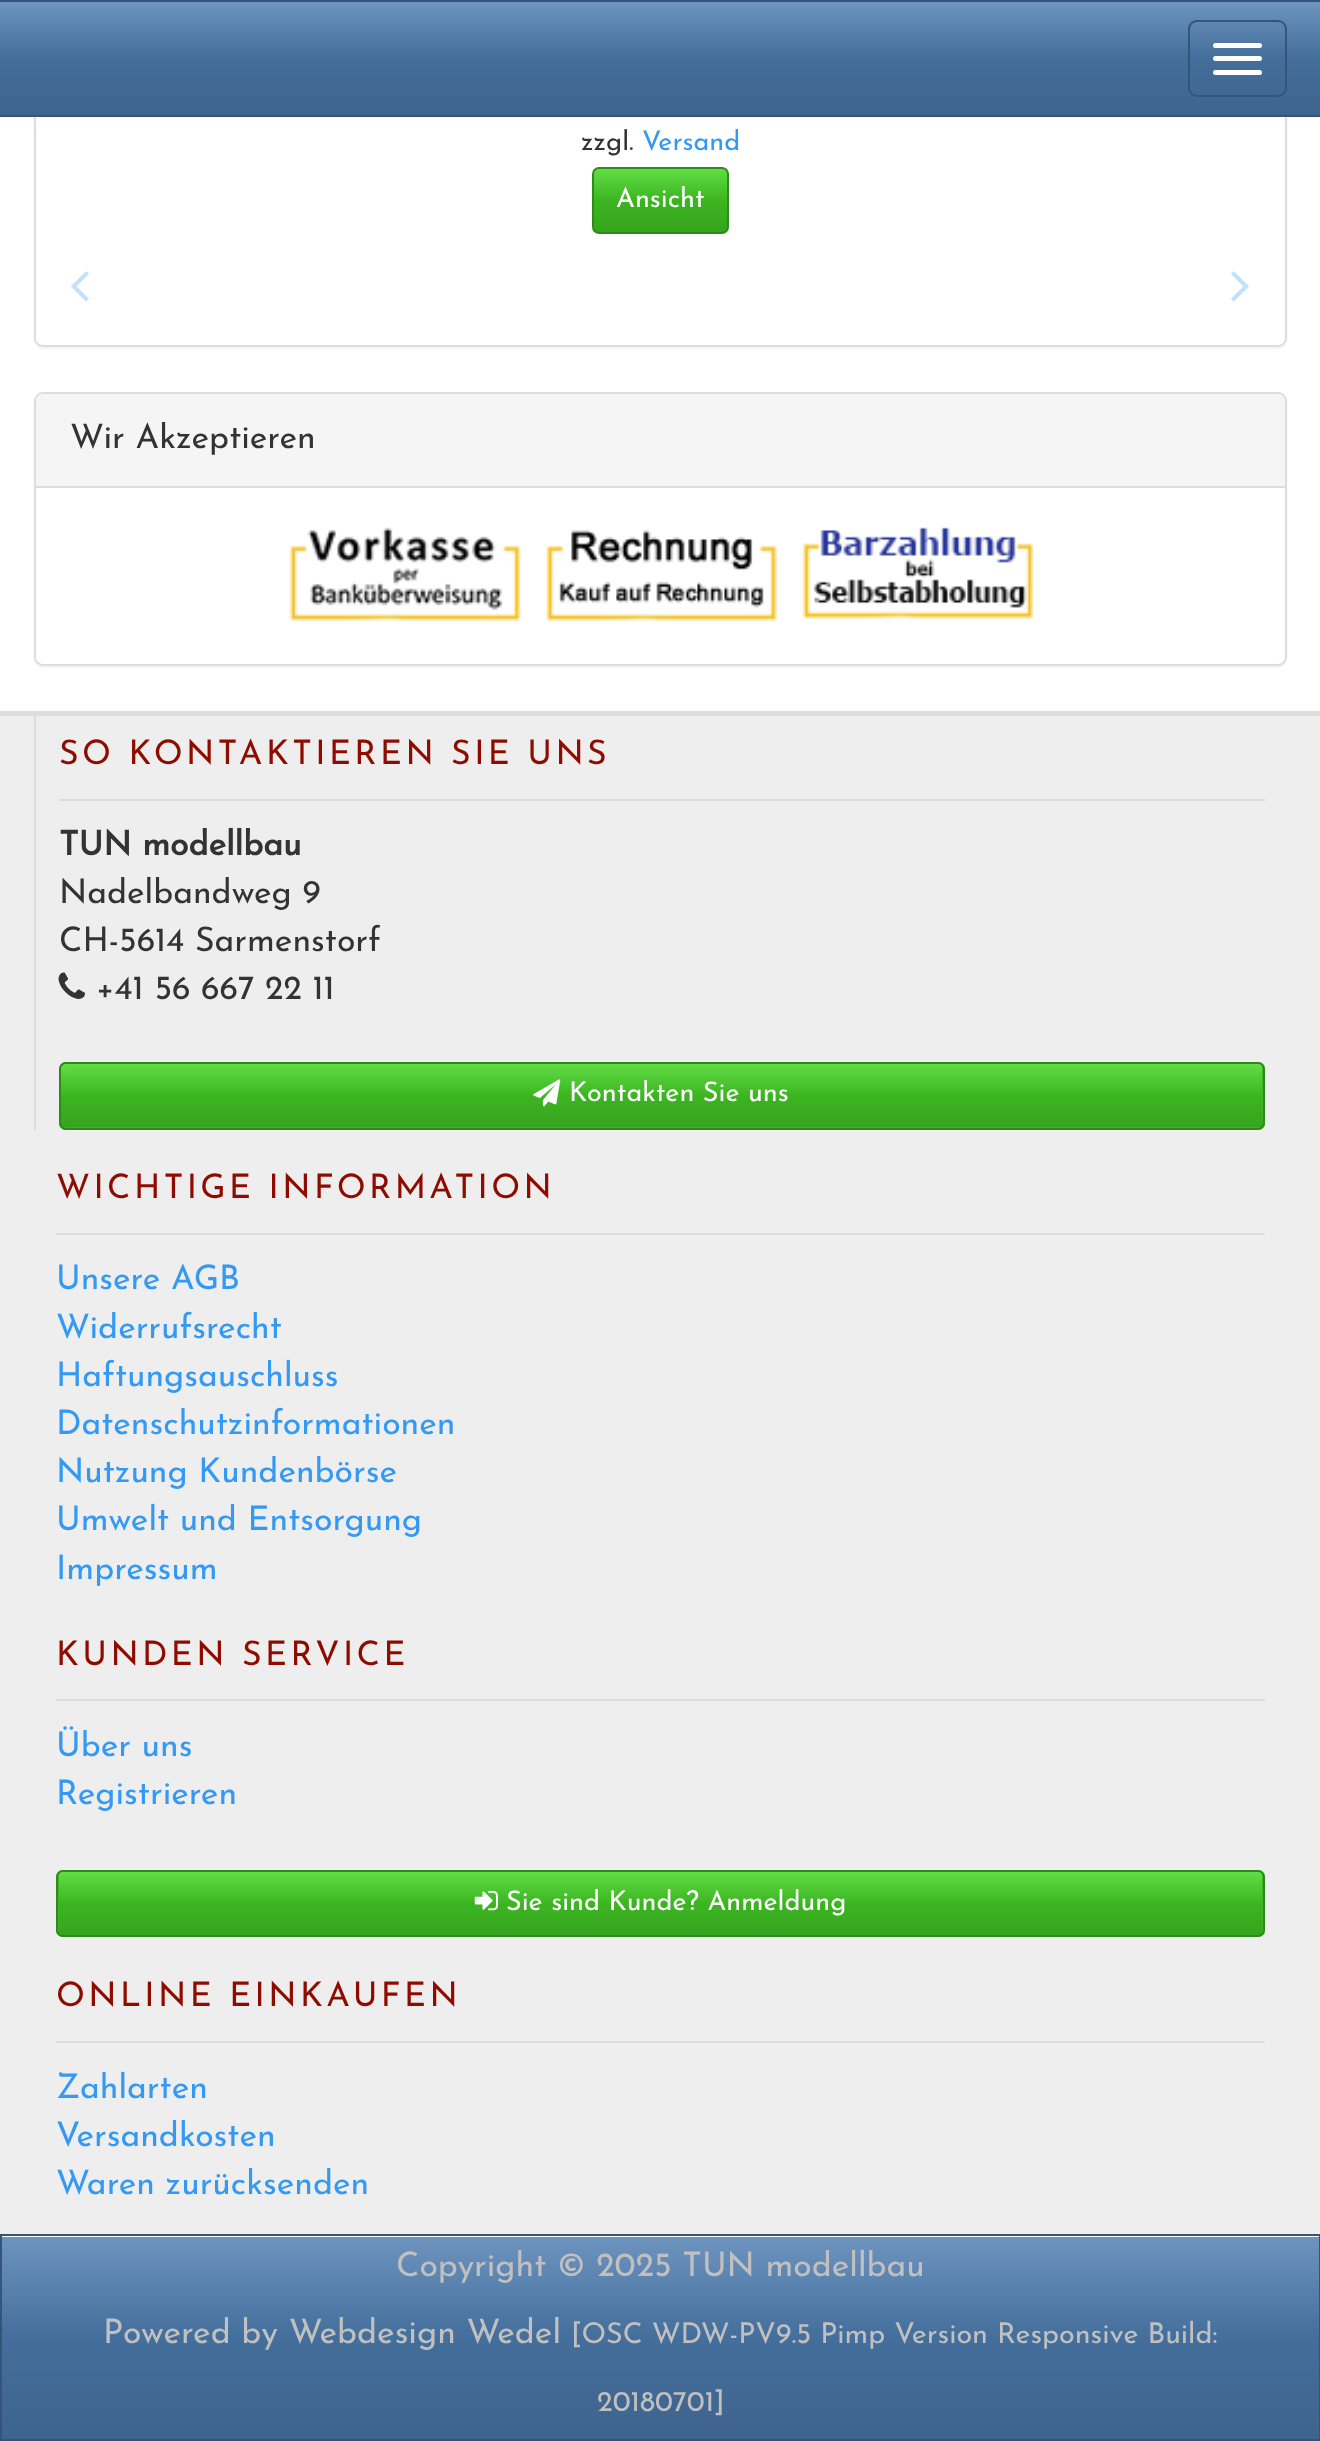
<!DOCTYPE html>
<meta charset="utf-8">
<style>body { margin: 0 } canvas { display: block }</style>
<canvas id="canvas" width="1320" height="2441"></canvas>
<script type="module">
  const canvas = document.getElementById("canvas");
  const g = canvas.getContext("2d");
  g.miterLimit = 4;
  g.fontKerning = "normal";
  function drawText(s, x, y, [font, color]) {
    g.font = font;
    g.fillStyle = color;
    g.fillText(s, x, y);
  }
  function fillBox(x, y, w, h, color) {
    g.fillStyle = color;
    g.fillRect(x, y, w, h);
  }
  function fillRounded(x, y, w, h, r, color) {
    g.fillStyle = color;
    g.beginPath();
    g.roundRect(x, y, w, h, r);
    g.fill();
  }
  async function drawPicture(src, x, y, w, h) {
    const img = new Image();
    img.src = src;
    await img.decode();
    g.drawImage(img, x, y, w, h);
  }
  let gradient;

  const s1 = ["100 27px Josefin Sans", "#333333"];
  const s2 = ["100 27px Josefin Sans", "#3399F3"];
  const s3 = ["100 27px Josefin Sans", "#FFFFFF"];
  const s4 = ["100 33.75px Josefin Sans", "#333333"];
  const s5 = ["100 33.75px Josefin Sans", "#8E0B00"];
  const s6 = ["bold 33.75px Josefin Sans", "#333333"];
  const s7 = ["100 33.75px Josefin Sans", "#3399F3"];
  const s8 = ["100 33.75px Josefin Sans", "#C0C0C0"];
  const s9 = ["100 28.7px Josefin Sans", "#C0C0C0"];

  fillBox(0, 0, 1320, 2441, "#FFFFFF");
  g.fillStyle = "rgba(0, 0, 0, 0.05)";
  g.filter = "blur(1px)";
  g.beginPath();
  g.roundRect(34, -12, 1253, 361, 9);
  g.fill();
  g.filter = "none";
  g.fillStyle = "#FFFFFF";
  g.beginPath();
  g.roundRect(35, -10, 1251, 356, 8);
  g.fill();
  g.strokeStyle = "#DDDDDD";
  g.lineWidth = 2;
  g.stroke();
  gradient = g.createLinearGradient(660, 2.2, 660, 115);
  gradient.addColorStop(0, "#6D94BF");
  gradient.addColorStop(0.5, "#446E9B");
  gradient.addColorStop(1, "#3E648D");
  g.fillStyle = gradient;
  g.fillRect(0, 2, 1320, 113);
  fillBox(0, 0, 1320, 2, "#345578");
  fillBox(0, 115, 1320, 2, "#345578");
  g.beginPath();
  g.roundRect(1189, 21, 97, 75, 8);
  g.strokeStyle = "#345578";
  g.stroke();
  fillRounded(1213, 43, 49, 5, 2.5, "#FFFFFF");
  fillRounded(1213, 56, 49, 5, 2.5, "#FFFFFF");
  fillRounded(1213, 70, 49, 5, 2.5, "#FFFFFF");
  drawText("zzgl.", 581, 150, s1);
  drawText("Versand", 642, 150, s2);
  gradient = g.createLinearGradient(660, 169, 660, 232);
  gradient.addColorStop(0, "#61DD45");
  gradient.addColorStop(0.5, "#3CB521");
  gradient.addColorStop(1, "#36A41E");
  g.fillStyle = gradient;
  g.fillRect(594, 169, 133, 63);
  g.beginPath();
  g.roundRect(593, 168, 135, 65, 6);
  g.strokeStyle = "#2E8A19";
  g.stroke();
  drawText("Ansicht", 616, 207, s3);
  await drawPicture("pic1.png", 71, 271, 18, 31);
  await drawPicture("pic2.png", 1231, 271, 18, 31);
  g.fillStyle = "rgba(0, 0, 0, 0.05)";
  g.filter = "blur(1px)";
  g.beginPath();
  g.roundRect(34, 394, 1253, 274, 9);
  g.fill();
  g.filter = "none";
  g.fillStyle = "#FFFFFF";
  g.beginPath();
  g.roundRect(35, 393, 1251, 272, 8);
  g.fill();
  g.strokeStyle = "#DDDDDD";
  g.stroke();
  g.fillStyle = "#F5F5F5";
  g.beginPath();
  g.roundRect(36, 394, 1249, 94, [7, 7, 0, 0]);
  g.fill();
  fillBox(36, 486, 1249, 2, "#DDDDDD");
  drawText("Wir Akzeptieren", 70, 448, s4);
  await drawPicture("pic3.png", 289, 527, 232, 95);
  await drawPicture("pic4.png", 546, 530, 231, 92);
  await drawPicture("pic5.png", 802, 527, 232, 92);
  fillBox(0, 716, 1320, 1518, "#EEEEEE");
  fillBox(0, 711, 1320, 5, "#DDDDDD");
  fillBox(34, 716, 2, 414, "#DDDDDD");
  fillBox(59, 799, 1206, 2, "#DDDDDD");
  g.letterSpacing = "3.4px";
  drawText("SO KONTAKTIEREN SIE UNS", 59, 764, s5);
  g.letterSpacing = "0px";
  drawText("TUN modellbau", 59, 855, s6);
  drawText("Nadelbandweg 9", 59, 903, s4);
  drawText("CH-5614 Sarmenstorf", 59, 951, s4);
  await drawPicture("pic6.png", 58, 972, 27, 27);
  drawText("+41 56 667 22 11", 96, 999, s4);
  fillRounded(59, 1062, 1206, 68, 7, "#3CB521");
  gradient = g.createLinearGradient(662, 1064, 662, 1127);
  gradient.addColorStop(0, "#61DD45");
  gradient.addColorStop(0.5, "#3CB521");
  gradient.addColorStop(1, "#36A41E");
  g.fillStyle = gradient;
  g.fillRect(61, 1064, 1201, 63);
  g.beginPath();
  g.roundRect(60, 1063, 1204, 66, 6);
  g.strokeStyle = "#2E8A19";
  g.stroke();
  await drawPicture("pic7.png", 533, 1079, 28, 28);
  drawText("Kontakten Sie uns", 569, 1101, s3);
  fillBox(56, 1233, 1209, 2, "#DDDDDD");
  g.letterSpacing = "3.4px";
  drawText("WICHTIGE INFORMATION", 56, 1198, s5);
  g.letterSpacing = "0px";
  drawText("Unsere AGB", 56, 1289, s7);
  drawText("Widerrufsrecht", 56, 1338, s7);
  drawText("Haftungsauschluss", 56, 1386, s7);
  drawText("Datenschutzinformationen", 56, 1434, s7);
  drawText("Nutzung Kundenbörse", 56, 1482, s7);
  drawText("Umwelt und Entsorgung", 56, 1530, s7);
  drawText("Impressum", 56, 1579, s7);
  fillBox(56, 1699, 1209, 2, "#DDDDDD");
  g.letterSpacing = "3.4px";
  drawText("KUNDEN SERVICE", 56, 1665, s5);
  g.letterSpacing = "0px";
  drawText("Über uns", 56, 1756, s7);
  drawText("Registrieren", 56, 1804, s7);
  fillRounded(56, 1870, 1209, 67, 7, "#3CB521");
  gradient = g.createLinearGradient(660, 1872, 660, 1935);
  gradient.addColorStop(0, "#61DD45");
  gradient.addColorStop(0.5, "#3CB521");
  gradient.addColorStop(1, "#36A41E");
  g.fillStyle = gradient;
  g.fillRect(59, 1872, 1203, 63);
  g.beginPath();
  g.roundRect(57, 1871, 1207, 65, 6);
  g.stroke();
  await drawPicture("pic8.png", 474, 1890, 24, 21);
  drawText("Sie sind Kunde? Anmeldung", 506, 1910, s3);
  fillBox(56, 2041, 1209, 2, "#DDDDDD");
  g.letterSpacing = "3.4px";
  drawText("ONLINE EINKAUFEN", 56, 2006, s5);
  g.letterSpacing = "0px";
  drawText("Zahlarten", 56, 2098, s7);
  drawText("Versandkosten", 56, 2146, s7);
  drawText("Waren zurücksenden", 56, 2194, s7);
  gradient = g.createLinearGradient(660, 2237, 660, 2439);
  gradient.addColorStop(0, "#6D94BF");
  gradient.addColorStop(0.5, "#446E9B");
  gradient.addColorStop(1, "#3E648D");
  g.fillStyle = gradient;
  g.fillRect(2, 2237, 1317, 202);
  g.strokeStyle = "#345578";
  g.strokeRect(1, 2235, 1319, 205);
  drawText("Copyright © 2025 TUN modellbau", 396, 2276, s8);
  drawText("Powered by Webdesign Wedel", 103, 2343, s8);
  drawText("[OSC WDW-PV9.5 Pimp Version Responsive Build:", 571, 2343, s9);
  drawText("20180701]", 597, 2411, s9);
</script>
